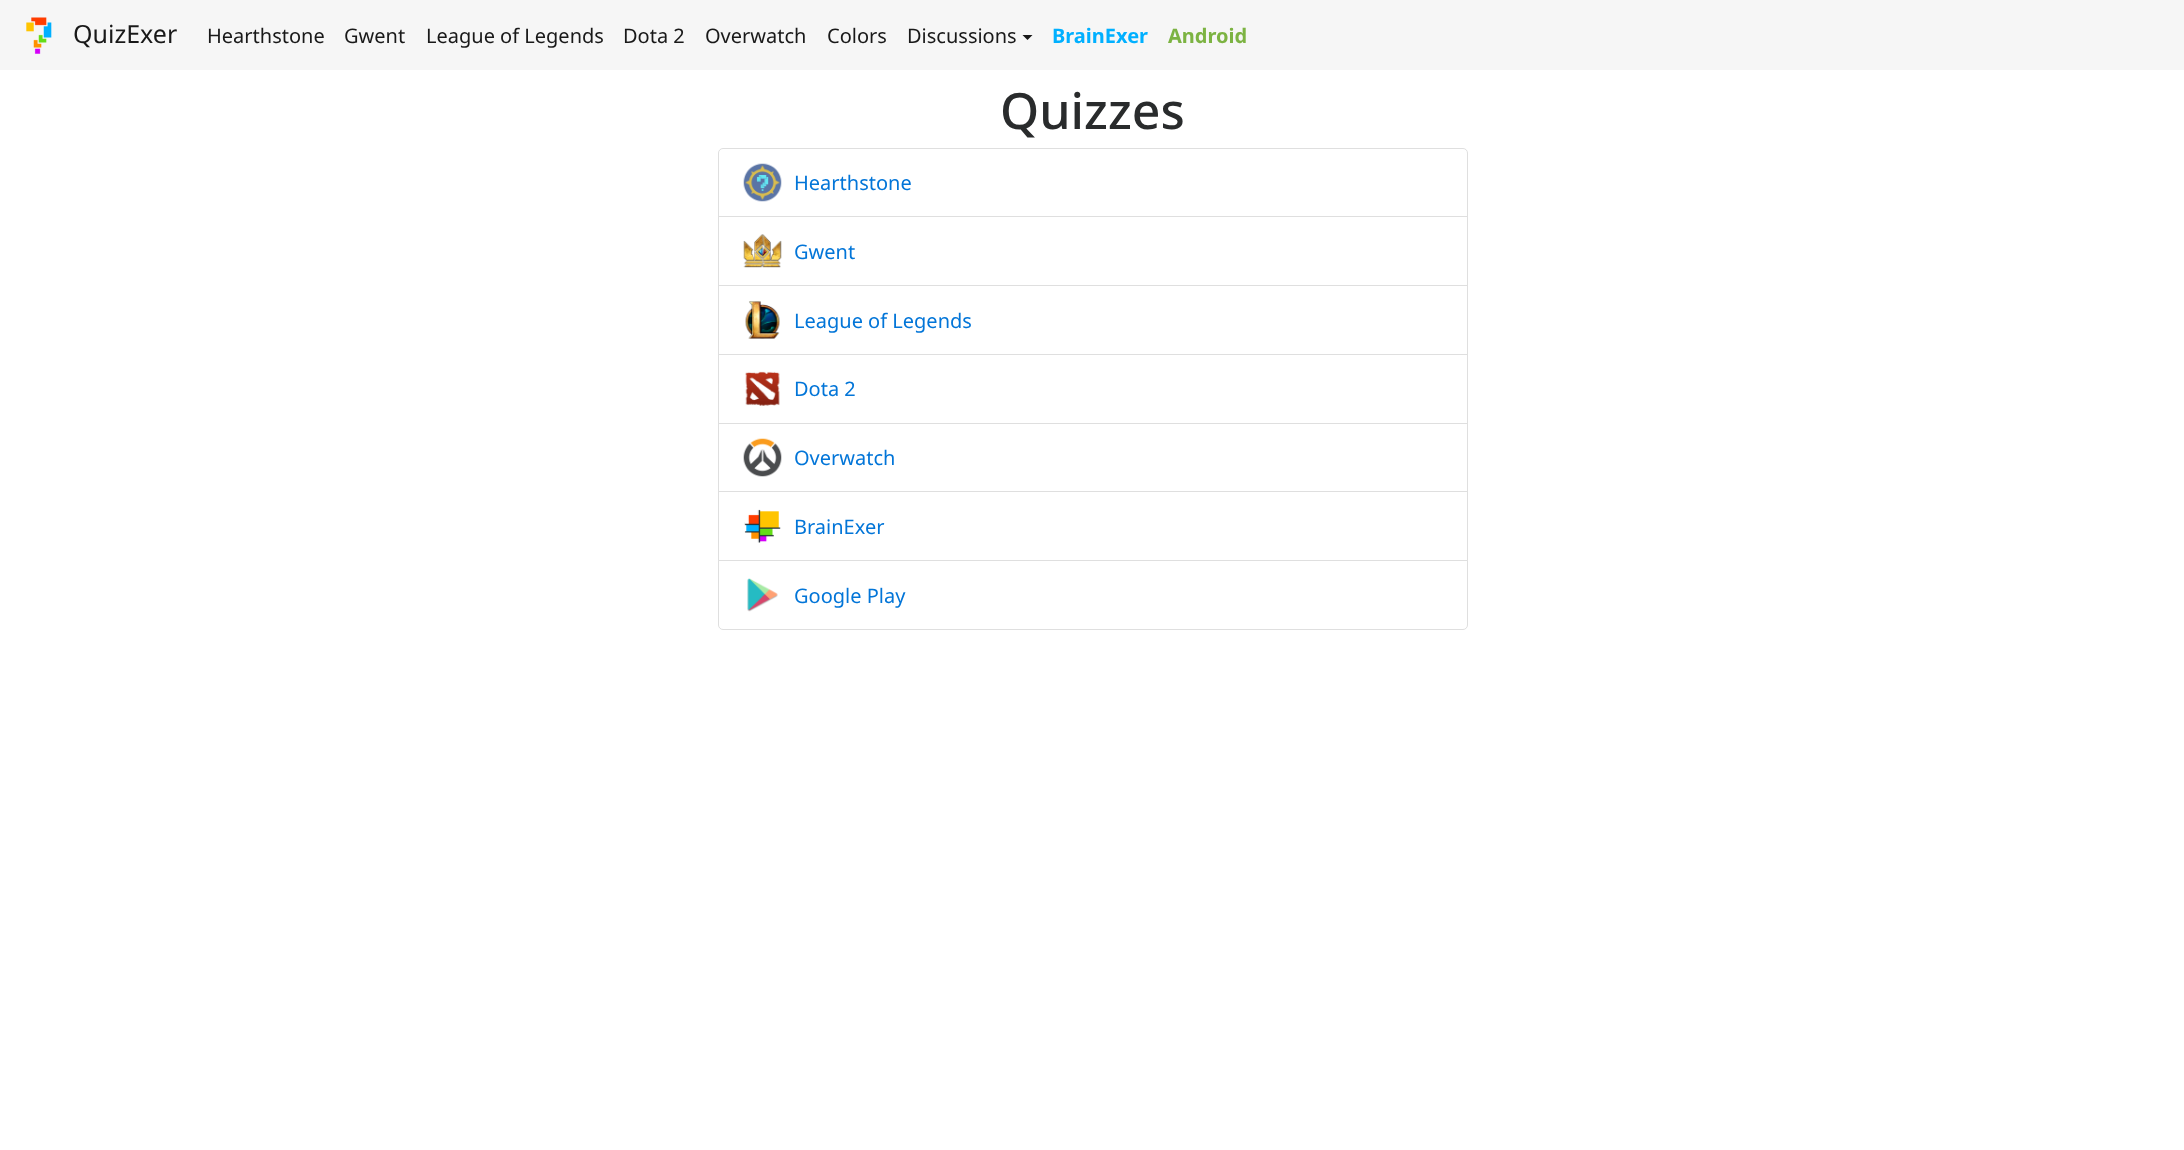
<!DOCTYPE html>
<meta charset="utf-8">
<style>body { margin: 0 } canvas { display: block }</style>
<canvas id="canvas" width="2184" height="1150"></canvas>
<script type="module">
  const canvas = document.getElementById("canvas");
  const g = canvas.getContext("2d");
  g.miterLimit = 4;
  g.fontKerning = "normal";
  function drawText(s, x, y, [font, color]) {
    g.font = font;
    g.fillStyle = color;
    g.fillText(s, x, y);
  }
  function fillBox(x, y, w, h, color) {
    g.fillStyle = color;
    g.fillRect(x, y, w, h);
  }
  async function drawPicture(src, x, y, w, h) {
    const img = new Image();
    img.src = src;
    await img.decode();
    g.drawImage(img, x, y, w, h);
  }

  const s1 = ["25px Noto Sans", "#191919"];
  const s2 = ["20px Noto Sans", "#191919"];
  const s3 = ["bold 20px Noto Sans", "#00B0FF"];
  const s4 = ["bold 20px Noto Sans", "#7CB342"];
  const s5 = ["500 50px Noto Sans", "#292B2C"];
  const s6 = ["20px Noto Sans", "#0275D8"];

  fillBox(0, 0, 2184, 1150, "#FFFFFF");
  fillBox(0, 0, 2184, 70, "#F6F6F6");
  await drawPicture("pic1.png", 26, 17, 26, 37);
  drawText("QuizExer", 73, 43, s1);
  drawText("Hearthstone", 207, 43, s2);
  drawText("Gwent", 344, 43, s2);
  drawText("League of Legends", 426, 43, s2);
  drawText("Dota 2", 623, 43, s2);
  drawText("Overwatch", 705, 43, s2);
  drawText("Colors", 827, 43, s2);
  drawText("Discussions", 907, 43, s2);
  g.beginPath();
  g.moveTo(1022.5, 35);
  g.lineTo(1032.5, 35);
  g.lineTo(1027.5, 40);
  g.closePath();
  g.fill();
  drawText("BrainExer", 1052, 43, s3);
  drawText("Android", 1168, 43, s4);
  drawText("Quizzes", 1000, 129, s5);
  g.beginPath();
  g.roundRect(718.5, 148.5, 749, 69, [4.5, 4.5, 0, 0]);
  g.strokeStyle = "#DFDFDF";
  g.stroke();
  await drawPicture("pic2.png", 743, 163, 39, 39);
  drawText("Hearthstone", 794, 190, s6);
  fillBox(719, 217, 748, 1, "#FFFFFF");
  g.strokeRect(718.5, 216.5, 749, 69);
  await drawPicture("pic3.png", 743, 234, 39, 34);
  drawText("Gwent", 794, 259, s6);
  g.strokeRect(718.5, 285.5, 749, 69);
  await drawPicture("pic4.png", 745, 301, 35, 38);
  drawText("League of Legends", 794, 328, s6);
  g.strokeRect(718.5, 354.5, 749, 69);
  await drawPicture("pic5.png", 745, 371, 35, 35);
  drawText("Dota 2", 794, 396, s6);
  g.strokeRect(718.5, 423.5, 749, 69);
  await drawPicture("pic6.png", 743, 438, 39, 39);
  drawText("Overwatch", 794, 465, s6);
  fillBox(719, 492, 748, 1, "#FFFFFF");
  g.strokeRect(718.5, 491.5, 749, 69);
  await drawPicture("pic7.png", 744, 509, 37, 34);
  drawText("BrainExer", 794, 534, s6);
  g.fillStyle = "#FFFFFF";
  g.beginPath();
  g.roundRect(718.5, 560.5, 749, 69, [0, 0, 4.5, 4.5]);
  g.fill();
  g.stroke();
  await drawPicture("pic8.png", 747, 578, 31, 34);
  drawText("Google Play", 794, 603, s6);
</script>
